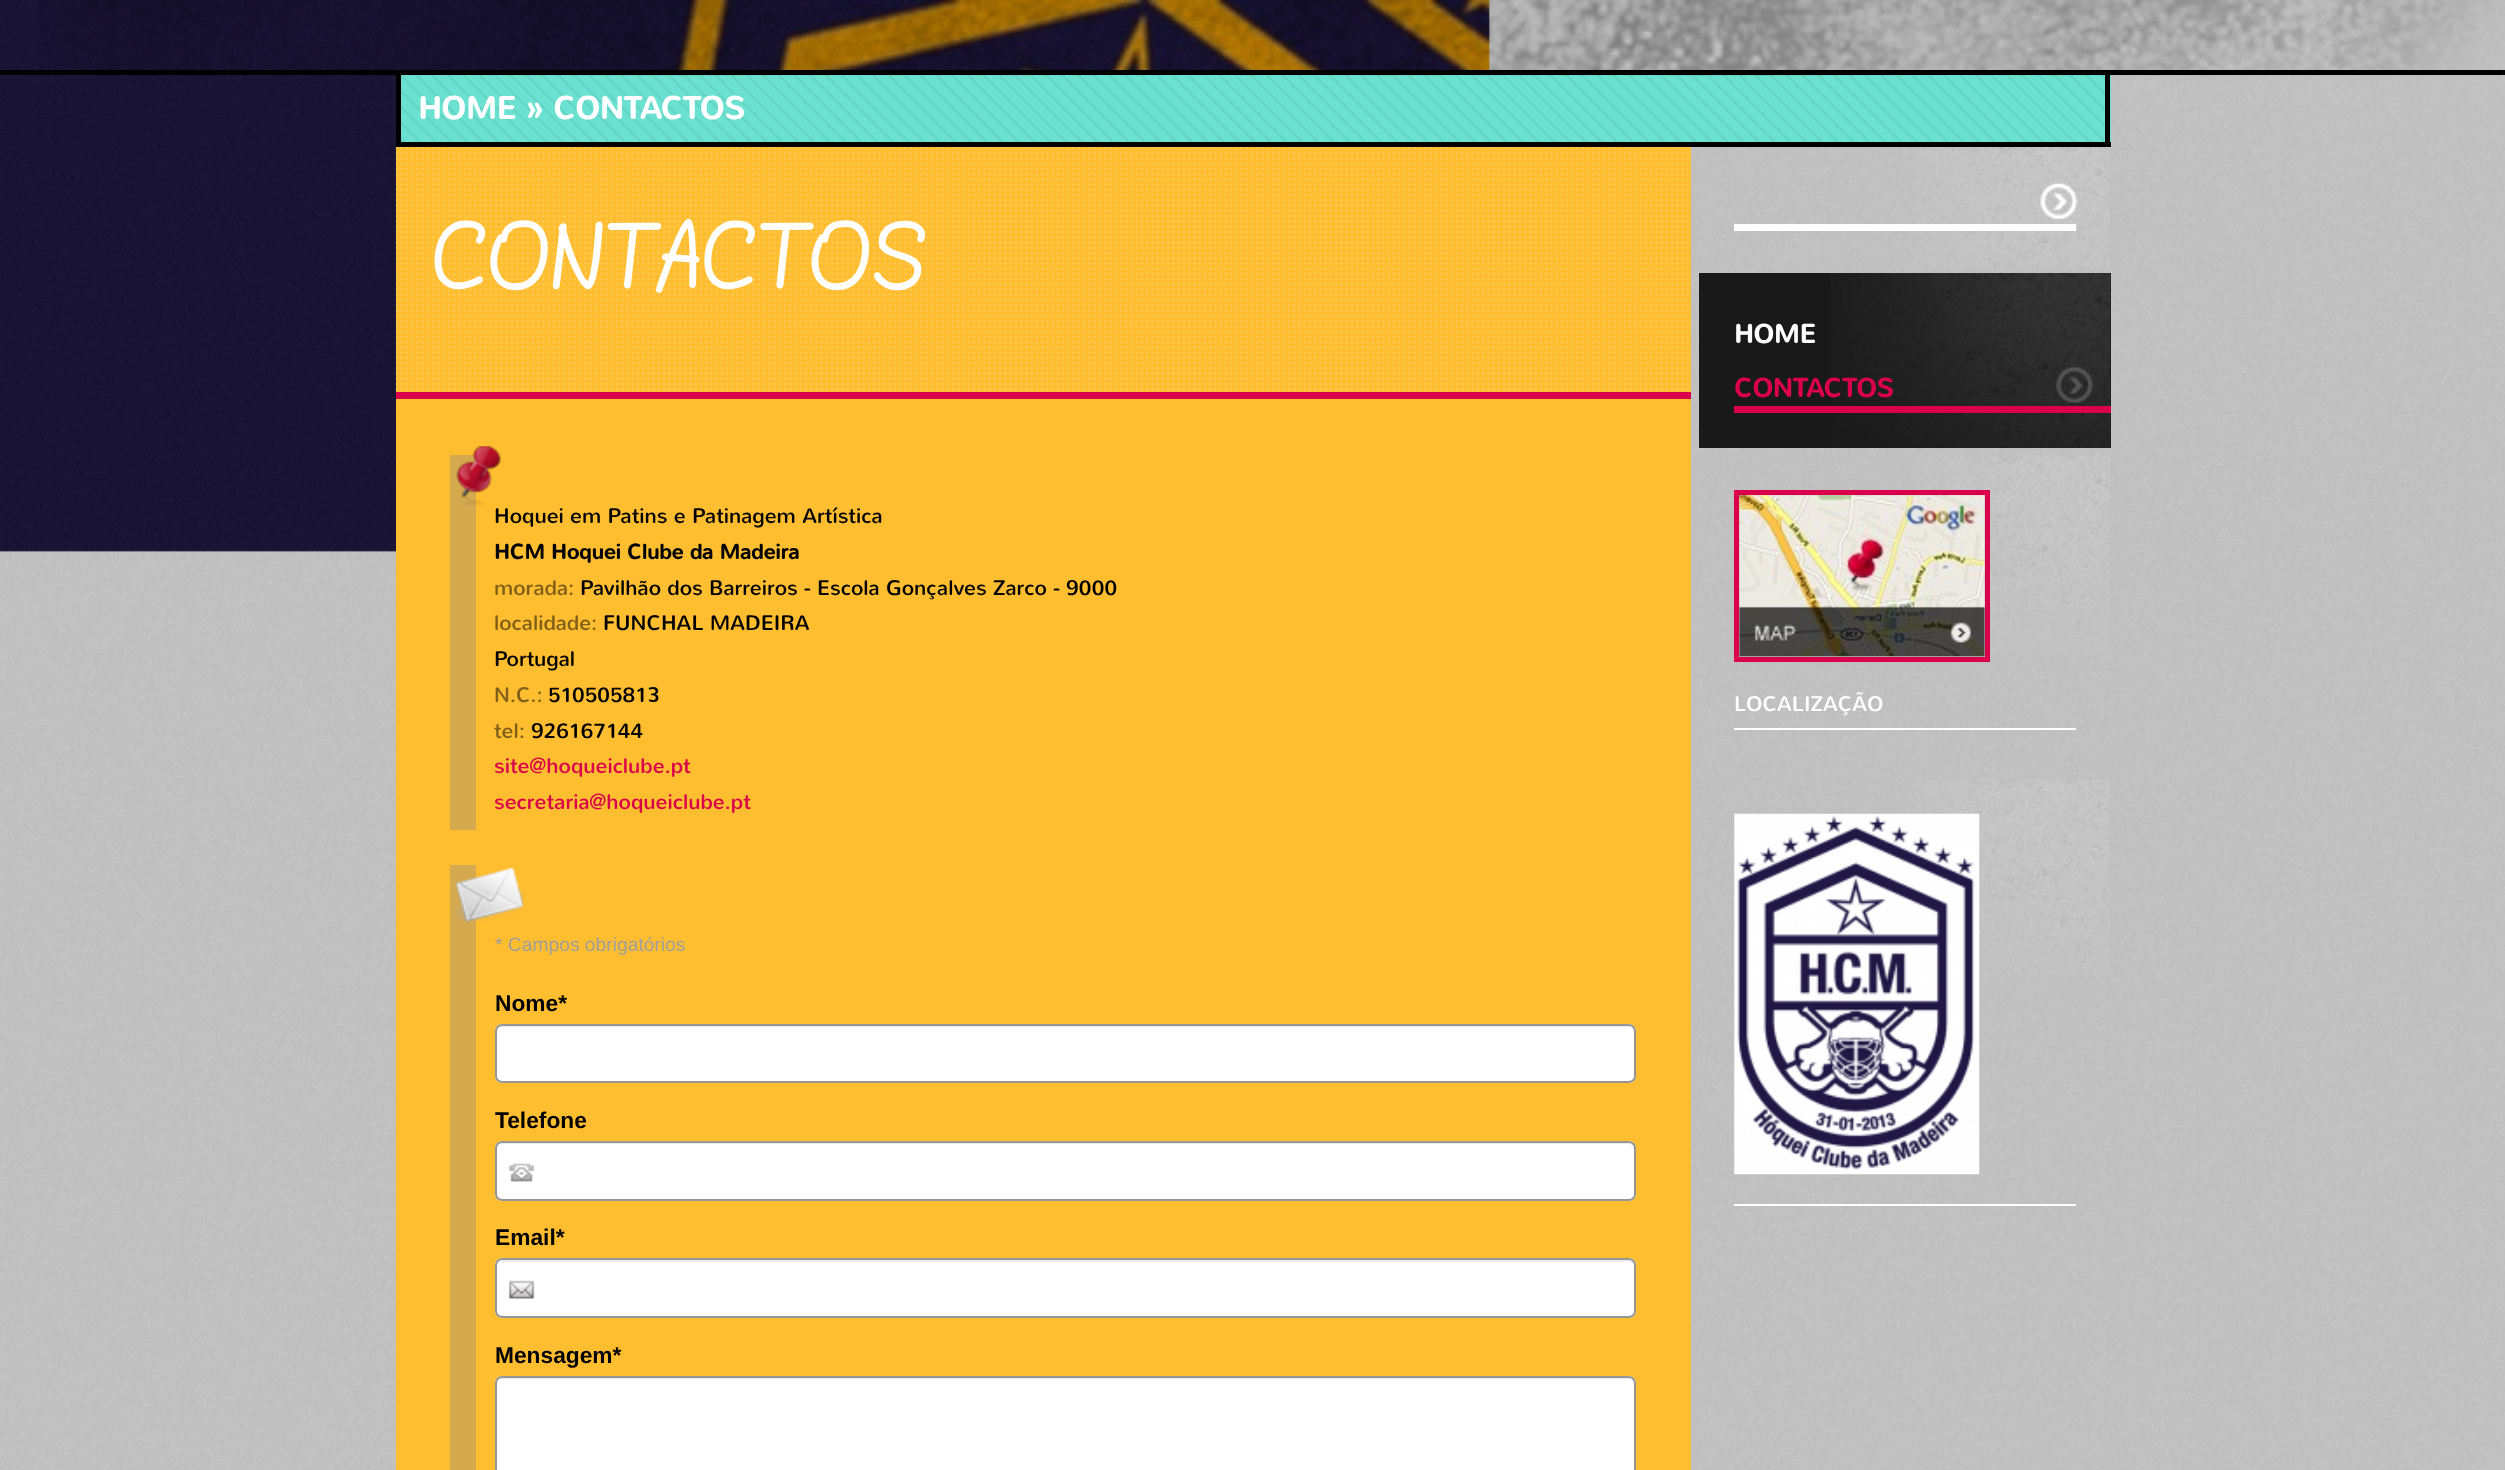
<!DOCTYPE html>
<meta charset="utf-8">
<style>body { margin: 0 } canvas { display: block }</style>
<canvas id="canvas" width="2505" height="1470"></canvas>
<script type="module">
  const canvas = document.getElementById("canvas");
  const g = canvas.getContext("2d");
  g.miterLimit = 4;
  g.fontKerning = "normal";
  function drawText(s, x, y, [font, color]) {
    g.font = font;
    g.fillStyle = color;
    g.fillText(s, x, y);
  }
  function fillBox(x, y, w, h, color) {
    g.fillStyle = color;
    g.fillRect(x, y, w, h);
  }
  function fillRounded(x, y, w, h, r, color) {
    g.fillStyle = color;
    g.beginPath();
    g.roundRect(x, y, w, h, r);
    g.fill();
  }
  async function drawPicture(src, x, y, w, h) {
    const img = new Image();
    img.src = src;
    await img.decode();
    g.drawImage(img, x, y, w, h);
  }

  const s1 = ["bold 31.5px Nunito", "#FFFFFF"];
  const s2 = ["bold 70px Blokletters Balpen", "#FFFFFF"];
  const s3 = ["21px Nunito", "#000000"];
  const s4 = ["bold 21px Nunito", "#000000"];
  const s5 = ["21px Nunito", "#805F18"];
  const s6 = ["21px Nunito", "#DA004C"];
  const s7 = ["19.25px Liberation Sans", "#A29F9D"];
  const s8 = ["bold 22.75px Liberation Sans", "#000000"];
  const s9 = ["bold 26.25px Nunito", "#FFFFFF"];
  const s10 = ["bold 26.25px Nunito", "#DA004C"];
  const s11 = ["21px Nunito", "#FFFFFF"];

  fillBox(0, 0, 2505, 1470, "#FFFFFF");
  await drawPicture("pic1.png", 0, 0, 1490, 552);
  await drawPicture("pic2.png", 0, 0, 2505, 1470);
  fillBox(401, 75, 1710, 67, "#6AE1D1");
  await drawPicture("pic4.png", 401, 75, 1710, 67);
  fillBox(2105, 75, 5, 72, "#000000");
  fillBox(396, 142, 1715, 5, "#000000");
  fillBox(396, 75, 5, 72, "#000000");
  await drawPicture("pic3.png", 38, 0, 2467, 76);
  fillBox(0, 70, 2505, 5, "#000000");
  drawText("HOME » CONTACTOS", 418, 119, s1);
  fillBox(396, 147, 1295, 1323, "#FFBD30");
  await drawPicture("pic5.png", 395, 147, 1295, 249);
  fillBox(396, 392, 1295, 7, "#DA004C");
  drawText("CONTACTOS", 431, 287, s2);
  fillBox(450, 455, 26, 375, "#D5AA4F");
  await drawPicture("pic6.png", 456, 446, 45, 60);
  drawText("Hoquei em Patins e Patinagem Artística", 494, 523, s3);
  drawText("HCM Hoquei Clube da Madeira", 494, 559, s4);
  drawText("morada:", 494, 595, s5);
  drawText("Pavilhão dos Barreiros - Escola Gonçalves Zarco - 9000", 580, 595, s3);
  drawText("localidade:", 494, 630, s5);
  drawText("FUNCHAL MADEIRA", 603, 630, s3);
  drawText("Portugal", 494, 666, s3);
  drawText("N.C.:", 494, 702, s5);
  drawText("510505813", 548, 702, s3);
  drawText("tel:", 494, 738, s5);
  drawText("926167144", 531, 738, s3);
  drawText("site@hoqueiclube.pt", 494, 773, s6);
  drawText("secretaria@hoqueiclube.pt", 494, 809, s6);
  fillBox(450, 865, 26, 605, "#D5AA4F");
  await drawPicture("pic7.png", 455, 868, 69, 55);
  drawText("* Campos obrigatórios", 495, 951, s7);
  drawText("Nome*", 495, 1011, s8);
  fillRounded(495, 1024, 1141, 59, 7, "#FFFFFF");
  g.fillStyle = "#ECECEC";
  g.beginPath();
  g.moveTo(502, 1027);
  g.lineTo(1629, 1027);
  g.bezierCurveTo(1632, 1027, 1634, 1030, 1634, 1032);
  g.lineTo(1634, 1078);
  g.lineTo(1633, 1081);
  g.bezierCurveTo(1634, 1080, 1635, 1078, 1635, 1077);
  g.lineTo(1635, 1031);
  g.bezierCurveTo(1635, 1028, 1633, 1026, 1630, 1026);
  g.lineTo(502, 1026);
  g.bezierCurveTo(499, 1026, 497, 1028, 497, 1031);
  g.lineTo(497, 1032);
  g.bezierCurveTo(497, 1030, 499, 1027, 502, 1027);
  g.closePath();
  g.fill();
  g.beginPath();
  g.roundRect(496, 1025, 1139, 57, 6);
  g.strokeStyle = "#969696";
  g.lineWidth = 2;
  g.stroke();
  drawText("Telefone", 495, 1128, s8);
  fillRounded(495, 1141, 1141, 60, 7, "#FFFFFF");
  await drawPicture("pic8.png", 497, 1142, 38, 40);
  g.fillStyle = "#ECECEC";
  g.beginPath();
  g.moveTo(502, 1144);
  g.lineTo(1629, 1144);
  g.bezierCurveTo(1632, 1144, 1634, 1147, 1634, 1150);
  g.lineTo(1634, 1195);
  g.lineTo(1633, 1198);
  g.bezierCurveTo(1634, 1197, 1635, 1195, 1635, 1194);
  g.lineTo(1635, 1148);
  g.bezierCurveTo(1635, 1145, 1633, 1143, 1630, 1143);
  g.lineTo(502, 1143);
  g.bezierCurveTo(499, 1143, 497, 1145, 497, 1148);
  g.lineTo(497, 1150);
  g.bezierCurveTo(497, 1147, 499, 1144, 502, 1144);
  g.closePath();
  g.fill();
  g.beginPath();
  g.roundRect(496, 1142, 1139, 58, 6);
  g.stroke();
  drawText("Email*", 495, 1245, s8);
  fillRounded(495, 1258, 1141, 60, 7, "#FFFFFF");
  await drawPicture("pic9.png", 497, 1258, 38, 60);
  g.fillStyle = "#ECECEC";
  g.beginPath();
  g.moveTo(502, 1262);
  g.lineTo(1629, 1262);
  g.bezierCurveTo(1632, 1262, 1634, 1264, 1634, 1267);
  g.lineTo(1634, 1312);
  g.lineTo(1634, 1315);
  g.bezierCurveTo(1634, 1314, 1635, 1312, 1635, 1311);
  g.lineTo(1635, 1265);
  g.bezierCurveTo(1635, 1262, 1633, 1260, 1630, 1260);
  g.lineTo(502, 1260);
  g.bezierCurveTo(499, 1260, 497, 1262, 497, 1265);
  g.lineTo(497, 1267);
  g.bezierCurveTo(497, 1264, 499, 1262, 502, 1262);
  g.closePath();
  g.fill();
  g.beginPath();
  g.roundRect(496, 1259, 1139, 58, 6);
  g.stroke();
  drawText("Mensagem*", 495, 1363, s8);
  fillRounded(495, 1376, 1141, 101, 7, "#FFFFFF");
  g.fillStyle = "#ECECEC";
  g.beginPath();
  g.moveTo(502, 1379);
  g.lineTo(1629, 1379);
  g.bezierCurveTo(1632, 1379, 1634, 1381, 1634, 1384);
  g.lineTo(1634, 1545);
  g.lineTo(1633, 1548);
  g.bezierCurveTo(1634, 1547, 1635, 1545, 1635, 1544);
  g.lineTo(1635, 1382);
  g.bezierCurveTo(1635, 1379, 1633, 1377, 1630, 1377);
  g.lineTo(502, 1377);
  g.bezierCurveTo(499, 1377, 497, 1379, 497, 1382);
  g.lineTo(497, 1384);
  g.bezierCurveTo(497, 1381, 499, 1379, 502, 1379);
  g.closePath();
  g.fill();
  g.beginPath();
  g.roundRect(496, 1377, 1139, 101, 6);
  g.stroke();
  await drawPicture("pic10.png", 1914, 147, 196, 119);
  await drawPicture("pic11.png", 2040, 183, 38, 37);
  fillBox(1734, 224, 342, 7, "#FFFFFF");
  fillBox(1699, 273, 412, 175, "#191919");
  await drawPicture("pic12.png", 1831, 273, 280, 175);
  drawText("HOME", 1734, 343, s9);
  await drawPicture("pic13.png", 2056, 367, 37, 36);
  fillBox(1734, 406, 377, 7, "#DA004C");
  drawText("CONTACTOS", 1734, 397, s10);
  await drawPicture("pic14.png", 1917, 455, 193, 197);
  g.strokeStyle = "#DA004C";
  g.lineWidth = 5;
  g.strokeRect(1736.5, 492.5, 251, 167);
  await drawPicture("pic15.png", 1739, 495, 246, 162);
  fillBox(1734, 728, 342, 2, "#FFFFFF");
  drawText("LOCALIZAÇÃO", 1734, 711, s11);
  await drawPicture("pic16.png", 1913, 779, 197, 196);
  await drawPicture("pic17.png", 1734, 813, 246, 362);
  fillBox(1734, 1204, 342, 2, "#FFFFFF");
</script>
